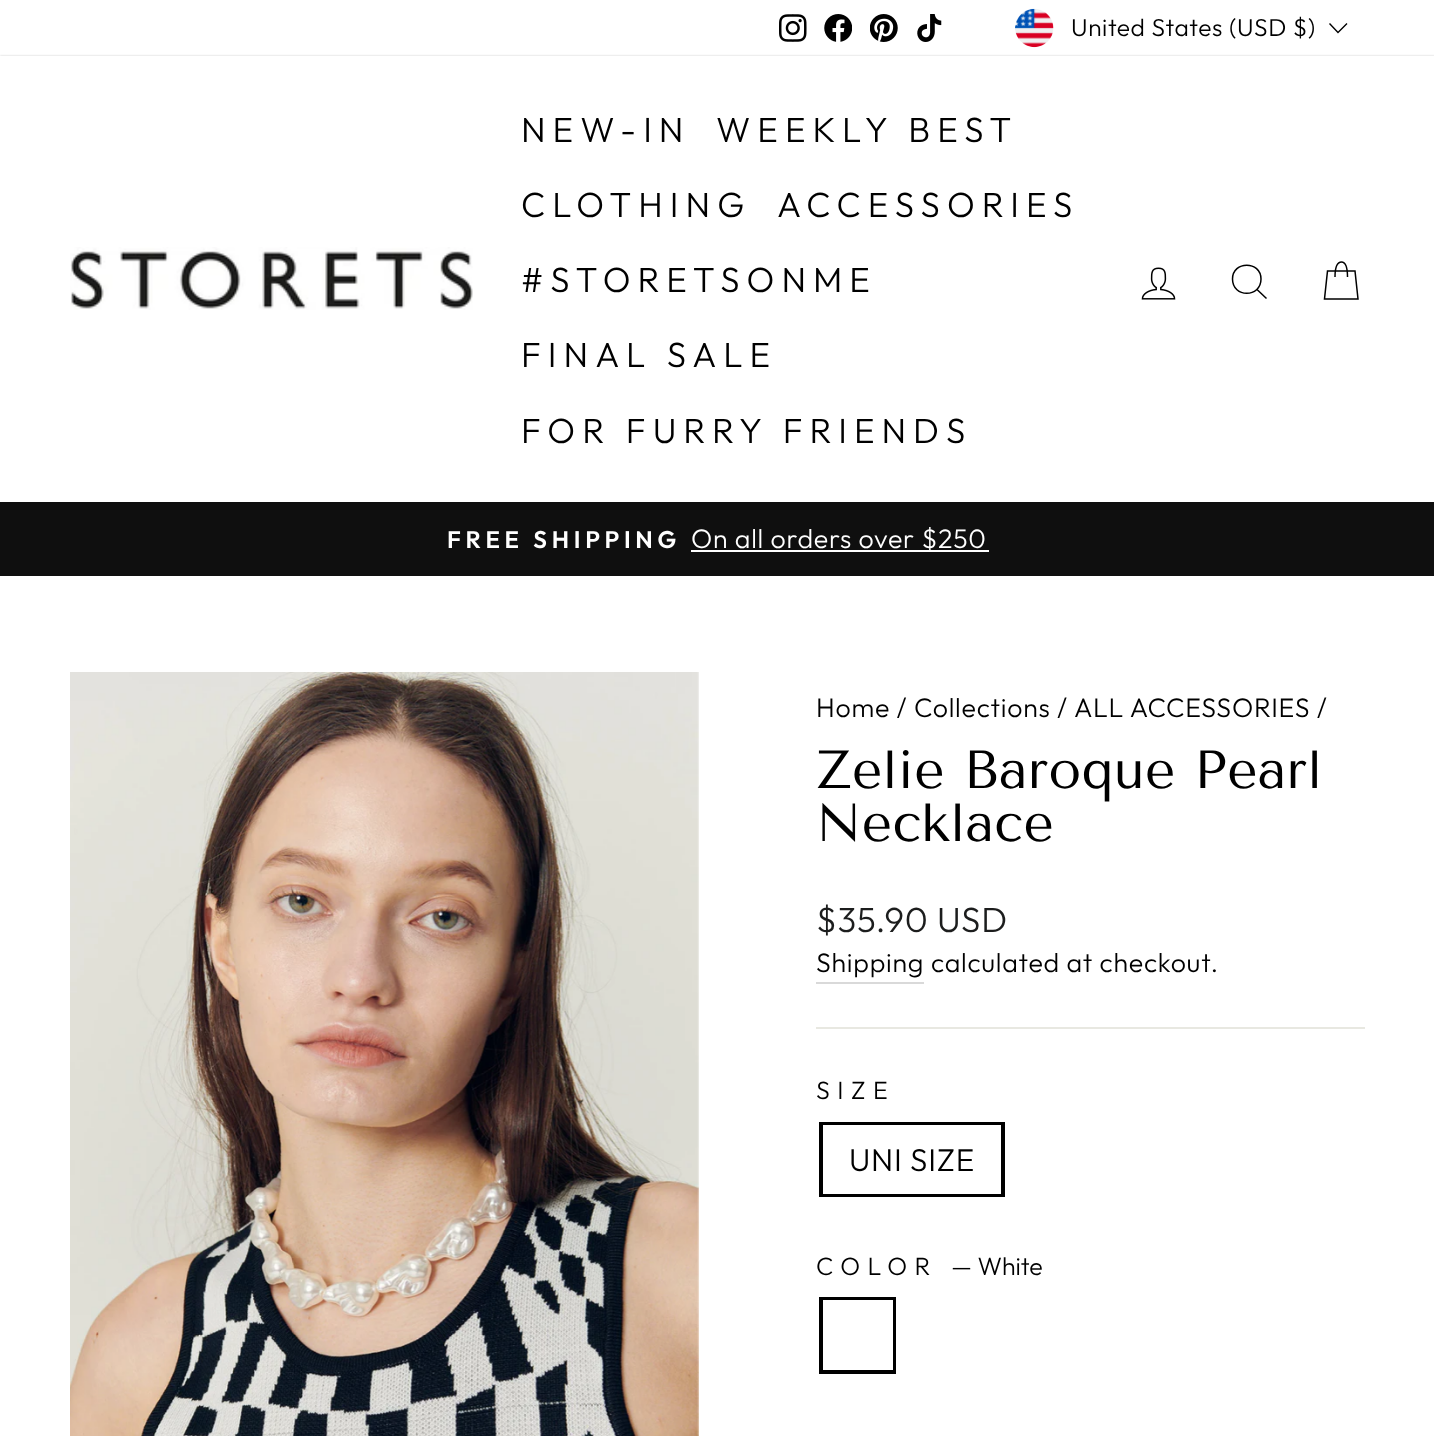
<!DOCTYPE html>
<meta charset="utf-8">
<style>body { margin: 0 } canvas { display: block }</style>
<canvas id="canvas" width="1434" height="1436"></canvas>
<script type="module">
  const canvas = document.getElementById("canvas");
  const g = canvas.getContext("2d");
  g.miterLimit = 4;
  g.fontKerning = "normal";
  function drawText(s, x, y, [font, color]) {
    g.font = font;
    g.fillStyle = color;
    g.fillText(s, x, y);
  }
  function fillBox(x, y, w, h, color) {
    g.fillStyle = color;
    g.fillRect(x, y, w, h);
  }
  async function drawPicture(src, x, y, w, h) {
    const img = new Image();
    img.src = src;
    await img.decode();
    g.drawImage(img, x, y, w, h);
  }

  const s1 = ["300 24.5px Outfit", "#000000"];
  const s2 = ["300 35px Outfit", "#000000"];
  const s3 = ["600 24px Outfit", "#FFFFFF"];
  const s4 = ["300 26.75px Outfit", "#FFFFFF"];
  const s5 = ["300 26.75px Outfit", "#000000"];
  const s6 = ["53.5px Tenor Sans", "#000000"];
  const s7 = ["300 35px Outfit", "#1C1D1D"];
  const s8 = ["300 25px Outfit", "#000000"];
  const s9 = ["300 31.5px Outfit", "#000000"];

  fillBox(0, 0, 1434, 1436, "#FFFFFF");
  await drawPicture("pic1.png", 779, 14, 28, 28);
  await drawPicture("pic2.png", 824, 14, 28, 28);
  await drawPicture("pic3.png", 870, 14, 28, 28);
  await drawPicture("pic4.png", 917, 14, 25, 28);
  await drawPicture("pic5.png", 1015, 8, 39, 40);
  g.letterSpacing = "0.6px";
  drawText("United States (USD $)", 1071, 36, s1);
  g.beginPath();
  g.moveTo(1329.5, 23.5);
  g.lineTo(1338, 32.5);
  g.lineTo(1347, 23.5);
  g.strokeStyle = "#000000";
  g.lineWidth = 1.4;
  g.stroke();
  fillBox(0, 502, 1434, 74, "#0F0F0F");
  g.save();
  g.beginPath();
  g.moveTo(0, 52);
  g.lineTo(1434, 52);
  g.lineTo(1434, 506);
  g.lineTo(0, 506);
  g.closePath();
  g.moveTo(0, 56);
  g.lineTo(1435, 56);
  g.lineTo(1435, 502);
  g.lineTo(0, 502);
  g.closePath();
  g.clip("evenodd");
  g.fillStyle = "rgba(0, 0, 0, 0.2)";
  g.filter = "blur(1px)";
  g.beginPath();
  g.rect(0, 56, 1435, 446);
  g.fill();
  g.filter = "none";
  g.restore();
  await drawPicture("pic6.png", 70, 247, 403, 63);
  g.letterSpacing = "7px";
  drawText("NEW-IN", 521, 142, s2);
  drawText("WEEKLY BEST", 716, 142, s2);
  drawText("CLOTHING", 521, 217, s2);
  drawText("ACCESSORIES", 777, 217, s2);
  drawText("#STORETSONME", 521, 292, s2);
  drawText("FINAL SALE", 521, 367, s2);
  drawText("FOR FURRY FRIENDS", 521, 443, s2);
  await drawPicture("pic7.png", 1141, 267, 35, 33);
  g.beginPath();
  g.moveTo(1261, 279);
  g.bezierCurveTo(1261, 298, 1232.5, 298, 1232.5, 279);
  g.bezierCurveTo(1232.5, 260.5, 1261, 260.5, 1261, 279);
  g.closePath();
  g.moveTo(1266.5, 298.5);
  g.lineTo(1257, 289.5);
  g.lineWidth = 1.5;
  g.stroke();
  g.beginPath();
  g.moveTo(1335, 277);
  g.bezierCurveTo(1335, 265, 1338, 262, 1341.5, 262);
  g.bezierCurveTo(1344.5, 262, 1347.5, 265, 1347.5, 277);
  g.moveTo(1327.5, 271);
  g.lineTo(1355, 271);
  g.lineTo(1358, 299);
  g.lineTo(1324.5, 299);
  g.closePath();
  g.stroke();
  g.letterSpacing = "4.75px";
  drawText("FREE SHIPPING", 447, 548, s3);
  fillBox(691, 550, 298, 2, "#FFFFFF");
  g.letterSpacing = "0.75px";
  drawText("On all orders over $250", 691, 548, s4);
  await drawPicture("pic8.png", 70, 672, 629, 764);
  drawText("Home / Collections /", 816, 717, s5);
  drawText("ALL ACCESSORIES /", 1074, 717, s5);
  g.letterSpacing = "0px";
  drawText("Zelie Baroque Pearl", 816, 788, s6);
  drawText("Necklace", 816, 841, s6);
  g.letterSpacing = "0.75px";
  drawText("$35.90 USD", 816, 932, s7);
  fillBox(816, 982, 108, 2, "#D9D9D9");
  drawText("Shipping", 816, 972, s5);
  drawText("calculated at checkout.", 931, 972, s5);
  fillBox(816, 1027, 549, 2, "#E8E8E1");
  g.letterSpacing = "7.5px";
  drawText("SIZE", 816, 1099, s8);
  g.lineWidth = 4;
  g.strokeRect(821, 1124, 182, 71);
  fillBox(823, 1125, 178, 69, "#FFFFFF");
  g.letterSpacing = "0.75px";
  drawText("UNI SIZE", 849, 1171, s9);
  g.letterSpacing = "7.5px";
  drawText("COLOR", 816, 1275, s8);
  g.letterSpacing = "0px";
  drawText("— White", 951, 1275, s8);
  g.strokeRect(821, 1299, 73, 73);
  fillBox(823, 1300, 70, 70, "#FFFFFF");
</script>
